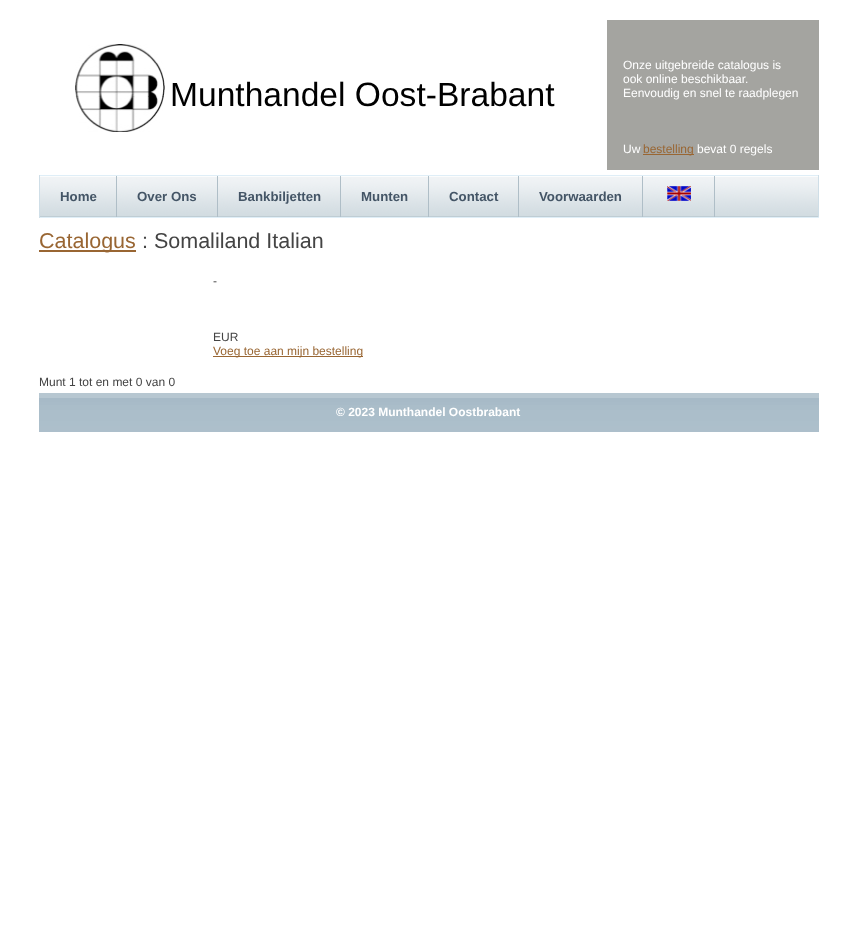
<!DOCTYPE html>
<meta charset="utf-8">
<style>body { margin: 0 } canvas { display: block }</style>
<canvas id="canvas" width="857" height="949"></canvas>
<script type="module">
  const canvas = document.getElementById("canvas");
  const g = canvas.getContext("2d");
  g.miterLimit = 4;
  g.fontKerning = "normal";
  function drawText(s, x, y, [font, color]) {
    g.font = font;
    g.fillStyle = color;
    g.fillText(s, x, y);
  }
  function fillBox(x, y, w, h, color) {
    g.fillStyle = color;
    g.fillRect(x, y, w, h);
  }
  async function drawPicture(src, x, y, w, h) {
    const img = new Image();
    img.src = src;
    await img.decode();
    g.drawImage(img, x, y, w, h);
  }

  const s1 = ["33.6px Liberation Sans", "#000000"];
  const s2 = ["12px Liberation Sans", "#FFFFFF"];
  const s3 = ["12px Liberation Sans", "#996633"];
  const s4 = ["bold 13.25px Liberation Sans", "#445566"];
  const s5 = ["21.5px Liberation Sans", "#996633"];
  const s6 = ["21.5px Liberation Sans", "#444444"];
  const s7 = ["12px Liberation Sans", "#444444"];
  const s8 = ["bold 12px Liberation Sans", "#FFFFFF"];

  fillBox(0, 0, 857, 949, "#FFFFFF");
  await drawPicture("pic1.png", 75, 44, 90, 88);
  drawText("Munthandel Oost-Brabant", 170, 106, s1);
  fillBox(607, 20, 212, 150, "#A4A4A0");
  drawText("Onze uitgebreide catalogus is", 623, 69, s2);
  drawText("ook online beschikbaar.", 623, 83, s2);
  drawText("Eenvoudig en snel te raadplegen", 623, 97, s2);
  drawText("Uw", 623, 153, s2);
  fillBox(643, 154, 51, 1, "#996633");
  drawText("bestelling", 643, 153, s3);
  drawText("bevat 0 regels", 697, 153, s2);
  await drawPicture("pic2.png", 715, 176, 103, 41);
  fillBox(39, 175, 780, 1, "#DFEEF7");
  fillBox(818, 175, 1, 43, "#CFDEE7");
  fillBox(39, 217, 780, 1, "#DFEEF7");
  fillBox(39, 175, 1, 43, "#CFDEE7");
  await drawPicture("pic3.png", 40, 176, 76, 41);
  fillBox(116, 176, 1, 41, "#AFBEC7");
  drawText("Home", 60, 201, s4);
  await drawPicture("pic4.png", 117, 176, 100, 41);
  fillBox(217, 176, 1, 41, "#AFBEC7");
  drawText("Over Ons", 137, 201, s4);
  await drawPicture("pic5.png", 218, 176, 122, 41);
  fillBox(340, 176, 1, 41, "#AFBEC7");
  drawText("Bankbiljetten", 238, 201, s4);
  await drawPicture("pic6.png", 341, 176, 87, 41);
  fillBox(428, 176, 1, 41, "#AFBEC7");
  drawText("Munten", 361, 201, s4);
  await drawPicture("pic7.png", 429, 176, 89, 41);
  fillBox(518, 176, 1, 41, "#AFBEC7");
  drawText("Contact", 449, 201, s4);
  await drawPicture("pic8.png", 519, 176, 123, 41);
  fillBox(642, 176, 1, 41, "#AFBEC7");
  drawText("Voorwaarden", 539, 201, s4);
  await drawPicture("pic9.png", 643, 176, 71, 41);
  fillBox(714, 176, 1, 41, "#AFBEC7");
  await drawPicture("pic10.png", 667, 186, 24, 15);
  fillBox(39, 250, 97, 2, "#996633");
  drawText("Catalogus", 39, 248, s5);
  drawText(": Somaliland Italian", 142, 248, s6);
  drawText("-", 213, 285, s7);
  drawText("EUR", 213, 341, s7);
  fillBox(213, 356, 150, 1, "#996633");
  drawText("Voeg toe aan mijn bestelling", 213, 355, s3);
  drawText("Munt 1 tot en met 0 van 0", 39, 386, s7);
  await drawPicture("pic11.png", 39, 393, 780, 39);
  drawText("© 2023 Munthandel Oostbrabant", 336, 416, s8);
</script>
